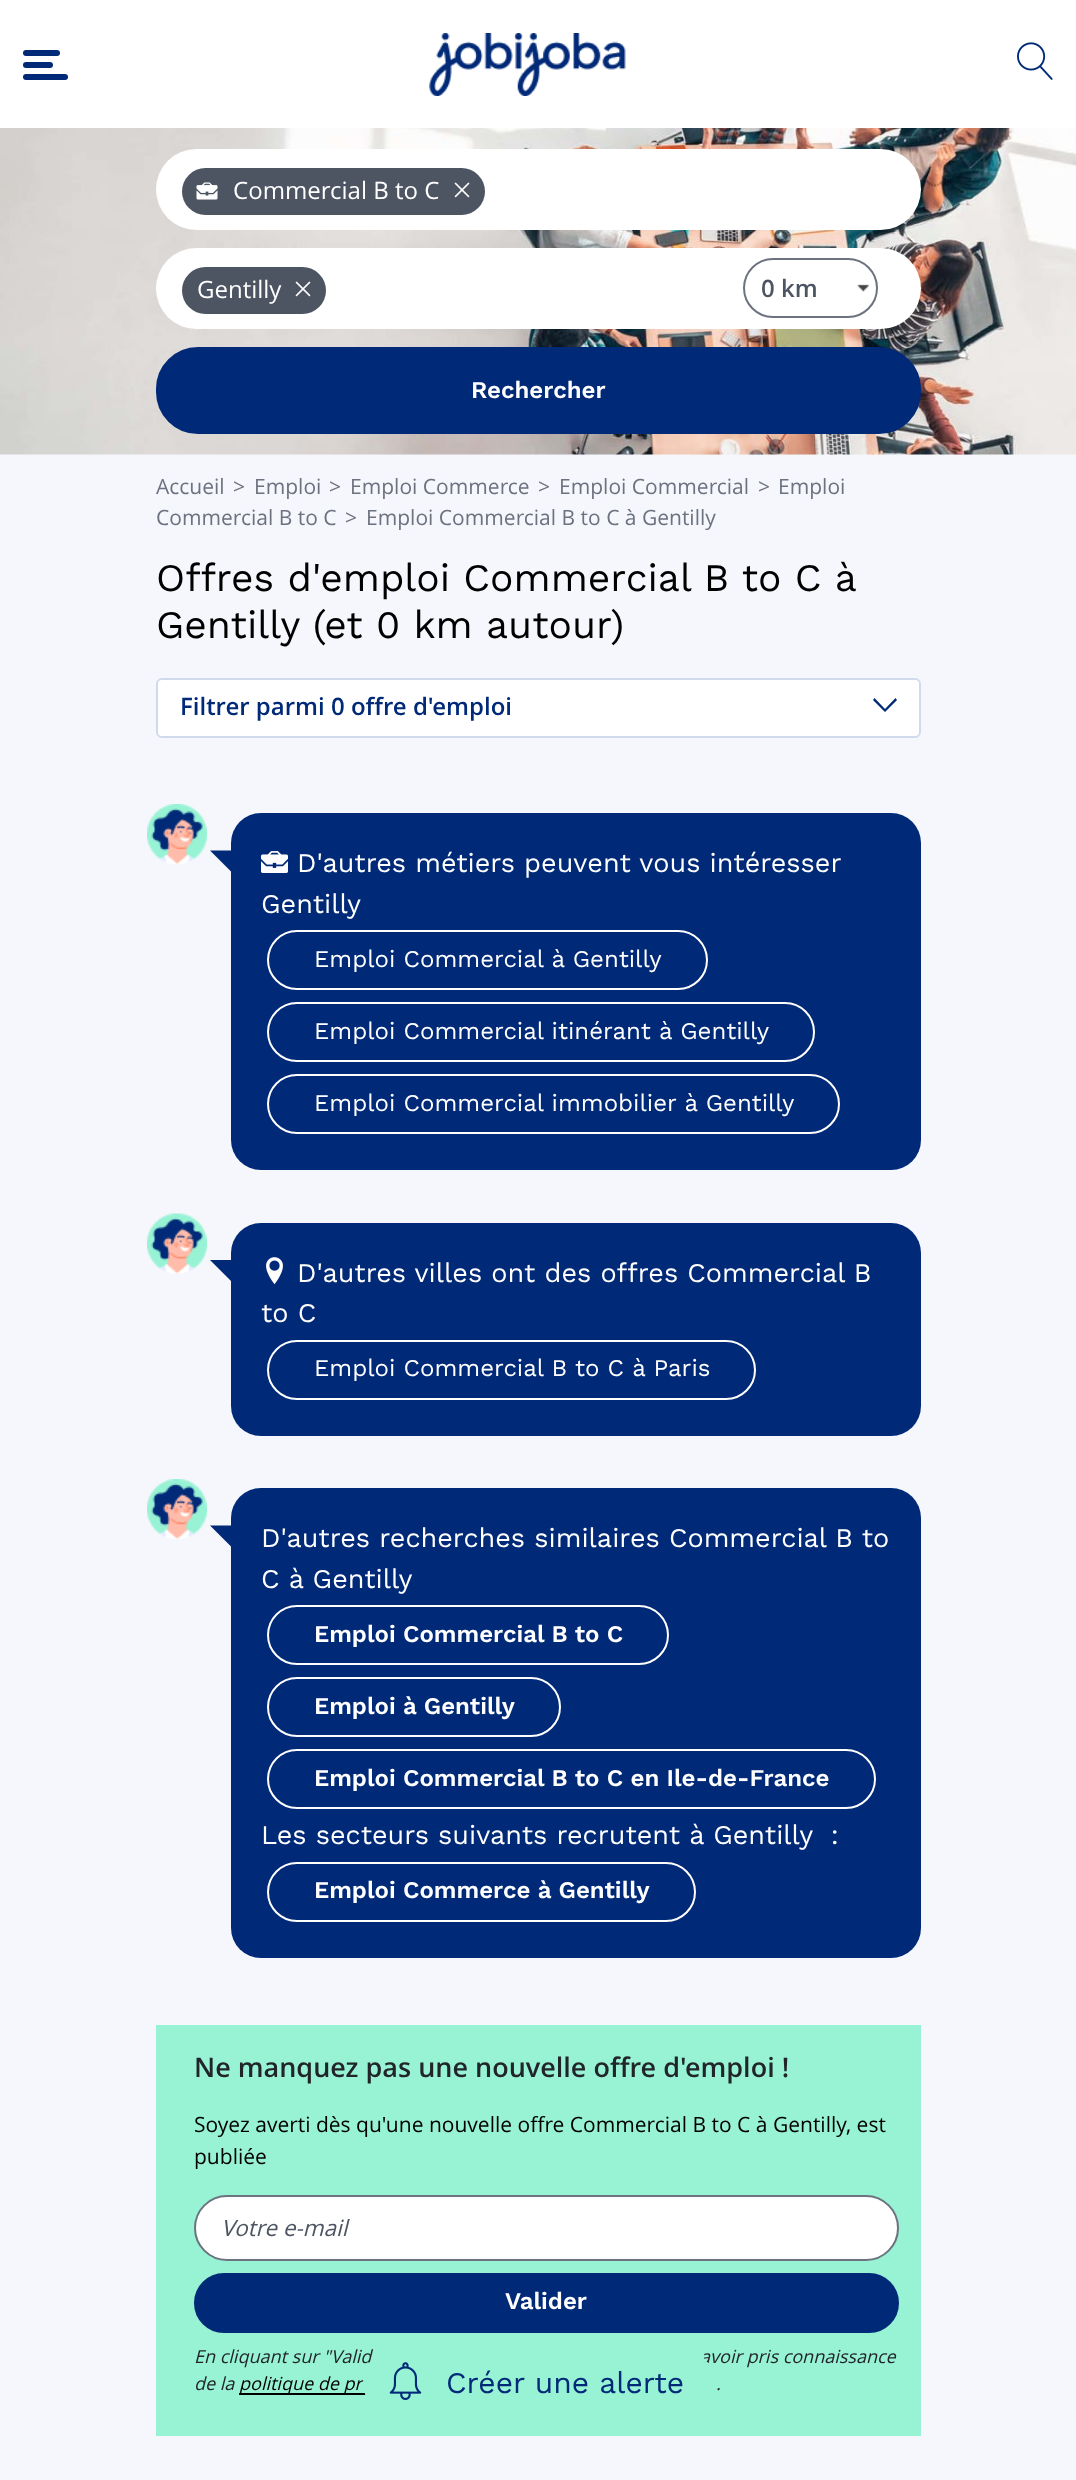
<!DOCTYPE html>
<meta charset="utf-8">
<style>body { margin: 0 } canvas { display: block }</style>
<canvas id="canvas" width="1076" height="2480"></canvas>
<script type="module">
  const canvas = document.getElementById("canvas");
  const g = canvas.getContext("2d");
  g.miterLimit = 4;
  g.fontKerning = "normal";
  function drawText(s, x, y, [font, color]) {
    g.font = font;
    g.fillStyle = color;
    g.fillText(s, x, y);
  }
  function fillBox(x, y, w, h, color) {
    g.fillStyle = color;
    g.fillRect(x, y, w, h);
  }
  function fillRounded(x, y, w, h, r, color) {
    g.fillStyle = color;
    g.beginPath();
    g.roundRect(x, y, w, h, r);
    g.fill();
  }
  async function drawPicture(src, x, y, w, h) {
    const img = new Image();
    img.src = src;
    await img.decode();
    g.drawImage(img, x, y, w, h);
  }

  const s1 = ["24px Open Sans", "#FFFFFF"];
  const s2 = ["600 24px Open Sans", "#4D5562"];
  const s3 = ["600 24px Work Sans", "#FFFFFF"];
  const s4 = ["21px Open Sans", "#6C727F"];
  const s5 = ["39px Work Sans", "#000000"];
  const s6 = ["600 24px Open Sans", "#002977"];
  const s7 = ["27px Work Sans", "#FFFFFF"];
  const s8 = ["24px Work Sans", "#FFFFFF"];
  const s9 = ["600 27px Open Sans", "#212529"];
  const s10 = ["21px Open Sans", "#000000"];
  const s11 = ["italic 22.5px Open Sans", "#4D5562"];
  const s12 = ["italic 18px Open Sans", "#212529"];
  const s13 = ["italic 18px Open Sans", "#000000"];
  const s14 = ["30px Work Sans", "#002977"];

  fillBox(0, 0, 1076, 2480, "#F5F7FC");
  fillBox(0, 0, 1076, 128, "#FFFFFF");
  fillRounded(23, 50, 37, 6, 3, "#002977");
  fillRounded(23, 62, 30, 6, 3, "#002977");
  fillRounded(23, 74, 45, 6, 3, "#002977");
  await drawPicture("pic1.png", 429, 33, 197, 63);
  await drawPicture("pic2.png", 1017, 42, 36, 38);
  await drawPicture("pic3.png", 0, 128, 1076, 327);
  fillRounded(156, 149, 765, 81, 40.5, "#FFFFFF");
  fillRounded(182, 168, 303, 47, 23.5, "#4D5562");
  await drawPicture("pic4.png", 196, 182, 22, 18);
  drawText("Commercial B to C", 233, 199, s1);
  await drawPicture("pic5.png", 454, 182, 16, 16);
  fillRounded(156, 248, 765, 81, 40.5, "#FFFFFF");
  fillRounded(182, 267, 144, 47, 23.5, "#4D5562");
  drawText("Gentilly", 197, 298, s1);
  await drawPicture("pic5.png", 295, 281, 16, 16);
  g.beginPath();
  g.roundRect(744, 259, 133, 58, 29);
  g.strokeStyle = "#6C727F";
  g.lineWidth = 2;
  g.stroke();
  drawText("0 km", 761, 297, s2);
  await drawPicture("pic6.png", 857, 284, 12, 8);
  g.fillStyle = "#002977";
  g.beginPath();
  g.roundRect(157, 348, 763, 85, 41);
  g.fill();
  g.strokeStyle = "#002977";
  g.stroke();
  drawText("Rechercher", 471, 398, s3);
  drawText("Accueil", 156, 494, s4);
  drawText(">", 233, 494, s4);
  drawText("Emploi", 254, 494, s4);
  drawText(">", 329, 494, s4);
  drawText("Emploi Commerce", 350, 494, s4);
  drawText(">", 538, 494, s4);
  drawText("Emploi Commercial", 559, 494, s4);
  drawText(">", 758, 494, s4);
  drawText("Emploi", 778, 494, s4);
  drawText("Commercial B to C", 156, 525, s4);
  drawText(">", 345, 525, s4);
  drawText("Emploi Commercial B to C à Gentilly", 366, 525, s4);
  drawText("Offres d'emploi Commercial B to C à", 156, 591, s5);
  drawText("Gentilly (et 0 km autour)", 156, 638, s5);
  g.fillStyle = "#FFFFFF";
  g.beginPath();
  g.roundRect(157, 679, 763, 58, 5);
  g.fill();
  g.strokeStyle = "#D1D9ED";
  g.stroke();
  drawText("Filtrer parmi 0 offre d'emploi", 180, 715, s6);
  g.beginPath();
  g.moveTo(897, 700);
  g.lineTo(895.5, 698);
  g.lineTo(885, 709);
  g.lineTo(874.5, 698);
  g.lineTo(873, 700);
  g.lineTo(885, 712);
  g.closePath();
  g.fill();
  fillRounded(231, 813, 690, 357, 30, "#002977");
  await drawPicture("pic7.png", 147, 804, 60, 60);
  g.beginPath();
  g.moveTo(231, 850.5);
  g.lineTo(231, 871.5);
  g.lineTo(210, 850.5);
  g.closePath();
  g.fill();
  await drawPicture("pic8.png", 261, 851, 27, 22);
  drawText("D'autres métiers peuvent vous intéresser", 297, 872, s7);
  drawText("Gentilly", 261, 913, s7);
  g.beginPath();
  g.roundRect(268, 931, 439, 58, 29);
  g.strokeStyle = "#FFFFFF";
  g.stroke();
  drawText("Emploi Commercial à Gentilly", 314, 967, s8);
  g.beginPath();
  g.roundRect(268, 1003, 546, 58, 29);
  g.stroke();
  drawText("Emploi Commercial itinérant à Gentilly", 314, 1039, s8);
  g.beginPath();
  g.roundRect(268, 1075, 571, 58, 29);
  g.stroke();
  drawText("Emploi Commercial immobilier à Gentilly", 314, 1111, s8);
  fillRounded(231, 1223, 690, 213, 30, "#002977");
  await drawPicture("pic9.png", 147, 1213, 60, 61);
  g.beginPath();
  g.moveTo(231, 1260);
  g.lineTo(231, 1281);
  g.lineTo(210, 1260);
  g.closePath();
  g.fill();
  await drawPicture("pic10.png", 266, 1257, 17, 28);
  drawText("D'autres villes ont des offres Commercial B", 297, 1282, s7);
  drawText("to C", 261, 1322, s7);
  g.beginPath();
  g.roundRect(268, 1341, 487, 58, 29);
  g.stroke();
  drawText("Emploi Commercial B to C à Paris", 314, 1376, s8);
  fillRounded(231, 1488, 690, 470, 30, "#002977");
  await drawPicture("pic7.png", 147, 1479, 60, 60);
  g.beginPath();
  g.moveTo(231, 1525.5);
  g.lineTo(231, 1546.5);
  g.lineTo(210, 1525.5);
  g.closePath();
  g.fill();
  drawText("D'autres recherches similaires Commercial B to", 261, 1547, s7);
  drawText("C à Gentilly", 261, 1588, s7);
  g.beginPath();
  g.roundRect(268, 1606, 400, 58, 29);
  g.stroke();
  drawText("Emploi Commercial B to C", 314, 1642, s3);
  g.beginPath();
  g.roundRect(268, 1678, 292, 58, 29);
  g.stroke();
  drawText("Emploi à Gentilly", 314, 1714, s3);
  g.beginPath();
  g.roundRect(268, 1750, 607, 58, 29);
  g.stroke();
  drawText("Emploi Commercial B to C en Ile-de-France", 314, 1786, s3);
  drawText("Les secteurs suivants recrutent à Gentilly  :", 261, 1844, s7);
  g.beginPath();
  g.roundRect(268, 1863, 427, 58, 29);
  g.stroke();
  drawText("Emploi Commerce à Gentilly", 314, 1898, s3);
  fillBox(156, 2025, 765, 411, "#97F3D4");
  drawText("Ne manquez pas une nouvelle offre d'emploi !", 194, 2077, s9);
  drawText("Soyez averti dès qu'une nouvelle offre Commercial B to C à Gentilly, est", 194, 2132, s10);
  drawText("publiée", 194, 2164, s10);
  g.fillStyle = "#FFFFFF";
  g.beginPath();
  g.roundRect(195, 2196, 703, 64, 32);
  g.fill();
  g.strokeStyle = "#6C727F";
  g.stroke();
  drawText("Votre e-mail", 221, 2236, s11);
  g.fillStyle = "#002977";
  g.beginPath();
  g.roundRect(195, 2274, 703, 58, 29);
  g.fill();
  g.strokeStyle = "#002977";
  g.stroke();
  drawText("Valider", 505, 2309, s3);
  drawText("En cliquant sur \"Valid", 194, 2363, s12);
  drawText("avoir pris connaissance", 700, 2363, s12);
  drawText("de la", 194, 2390, s12);
  fillBox(239, 2393, 127, 2, "#000000");
  drawText("politique de pr", 239, 2390, s13);
  drawText(".", 716, 2390, s12);
  g.fillStyle = "#97F3D4";
  g.beginPath();
  g.roundRect(364, 2349, 349, 67, 33.5);
  g.fill();
  g.strokeStyle = "#97F3D4";
  g.stroke();
  await drawPicture("pic11.png", 389, 2362, 33, 38);
  drawText("Créer une alerte", 446, 2393, s14);
</script>
